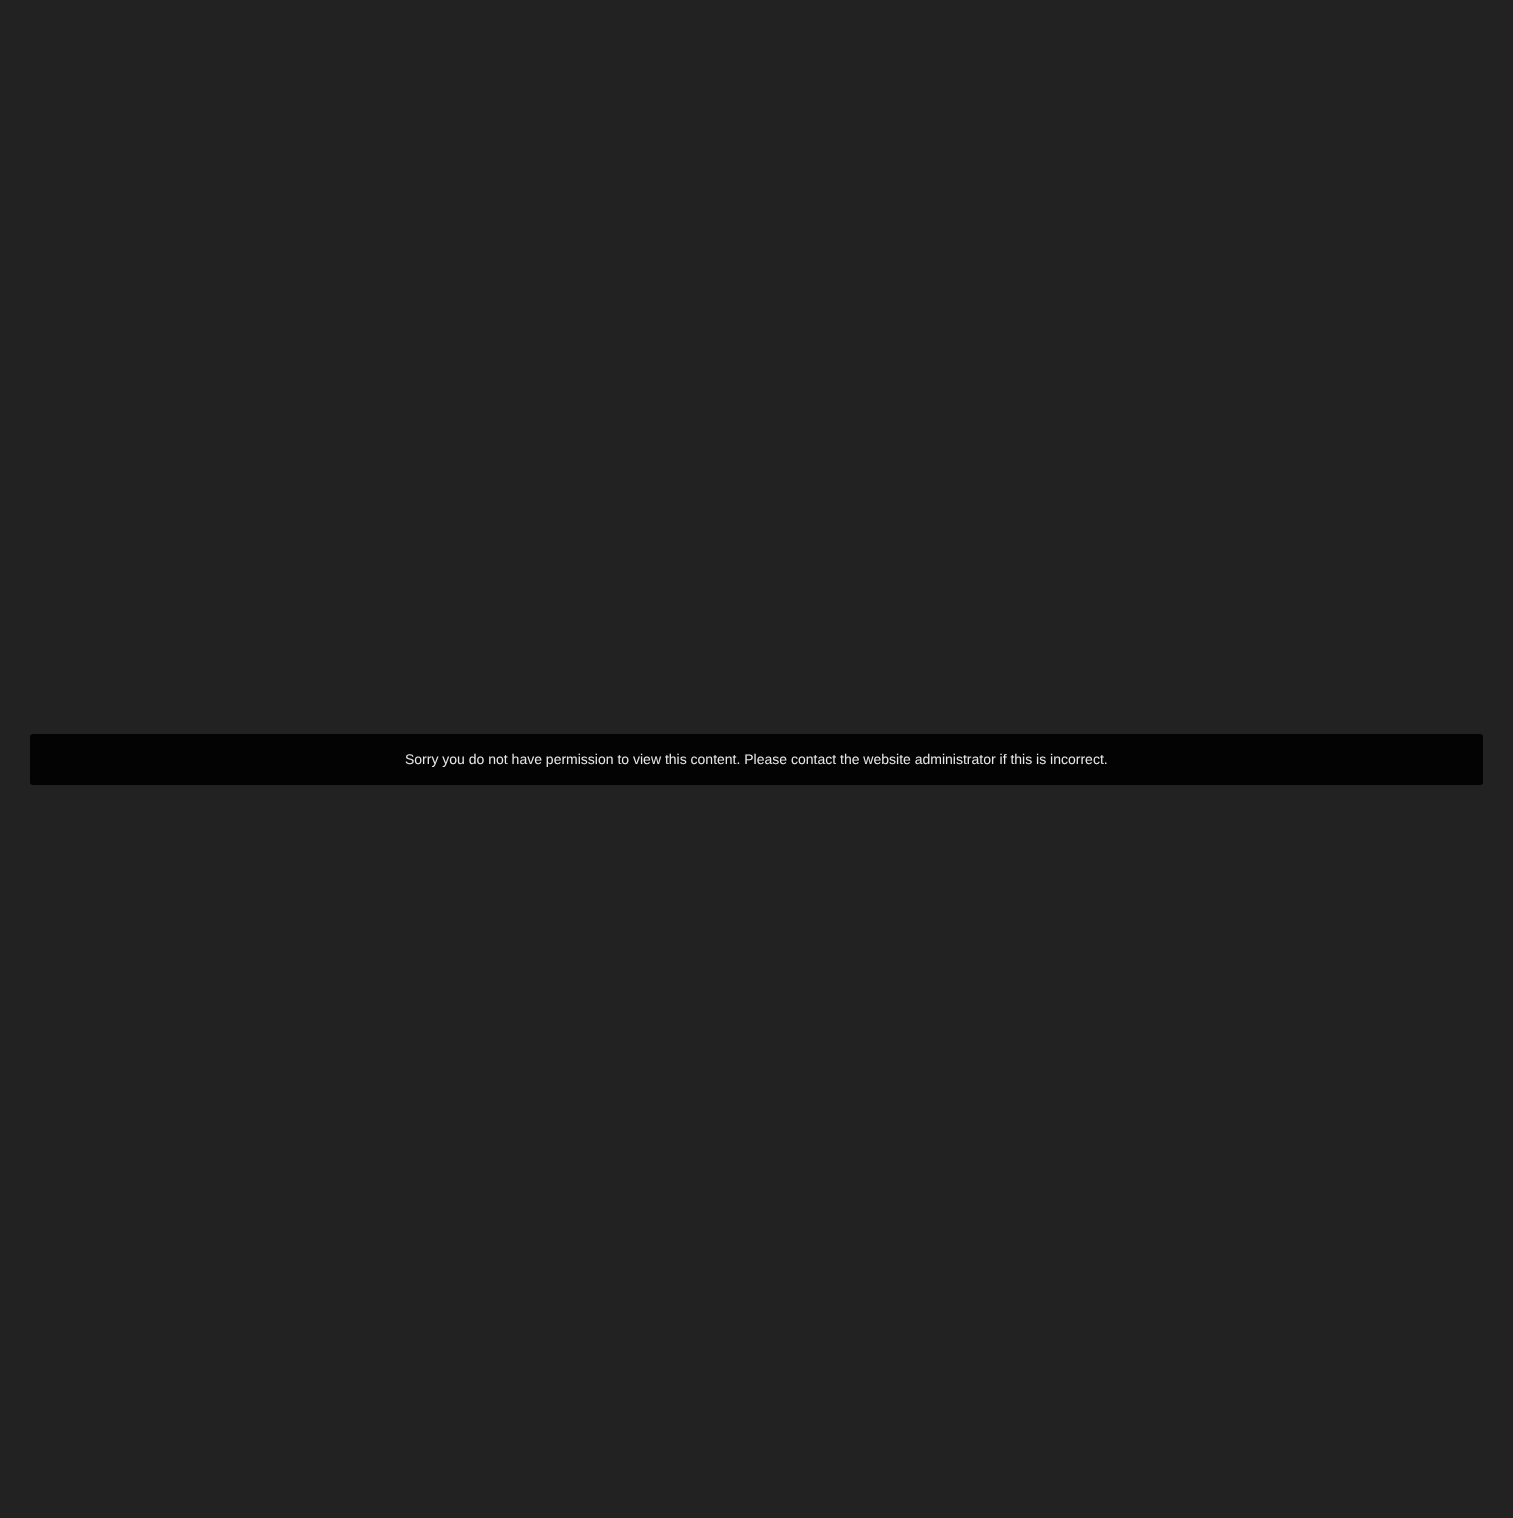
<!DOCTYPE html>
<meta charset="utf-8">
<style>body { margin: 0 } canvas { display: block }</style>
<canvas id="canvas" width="1513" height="1518"></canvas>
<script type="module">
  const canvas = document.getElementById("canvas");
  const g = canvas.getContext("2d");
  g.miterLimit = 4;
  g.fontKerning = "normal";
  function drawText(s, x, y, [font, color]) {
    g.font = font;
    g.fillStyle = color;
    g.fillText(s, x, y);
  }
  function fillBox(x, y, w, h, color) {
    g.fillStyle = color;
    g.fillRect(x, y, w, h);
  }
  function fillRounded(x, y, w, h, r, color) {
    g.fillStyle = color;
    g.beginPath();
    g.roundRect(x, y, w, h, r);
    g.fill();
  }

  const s1 = ["14px Liberation Sans", "#E9E9E9"];

  fillBox(0, 0, 1513, 1518, "#222222");
  fillRounded(30, 734, 1453, 51, 3, "#030303");
  drawText("Sorry you do not have permission to view this content. Please contact the website administrator if this is incorrect.", 405, 764, s1);
</script>
